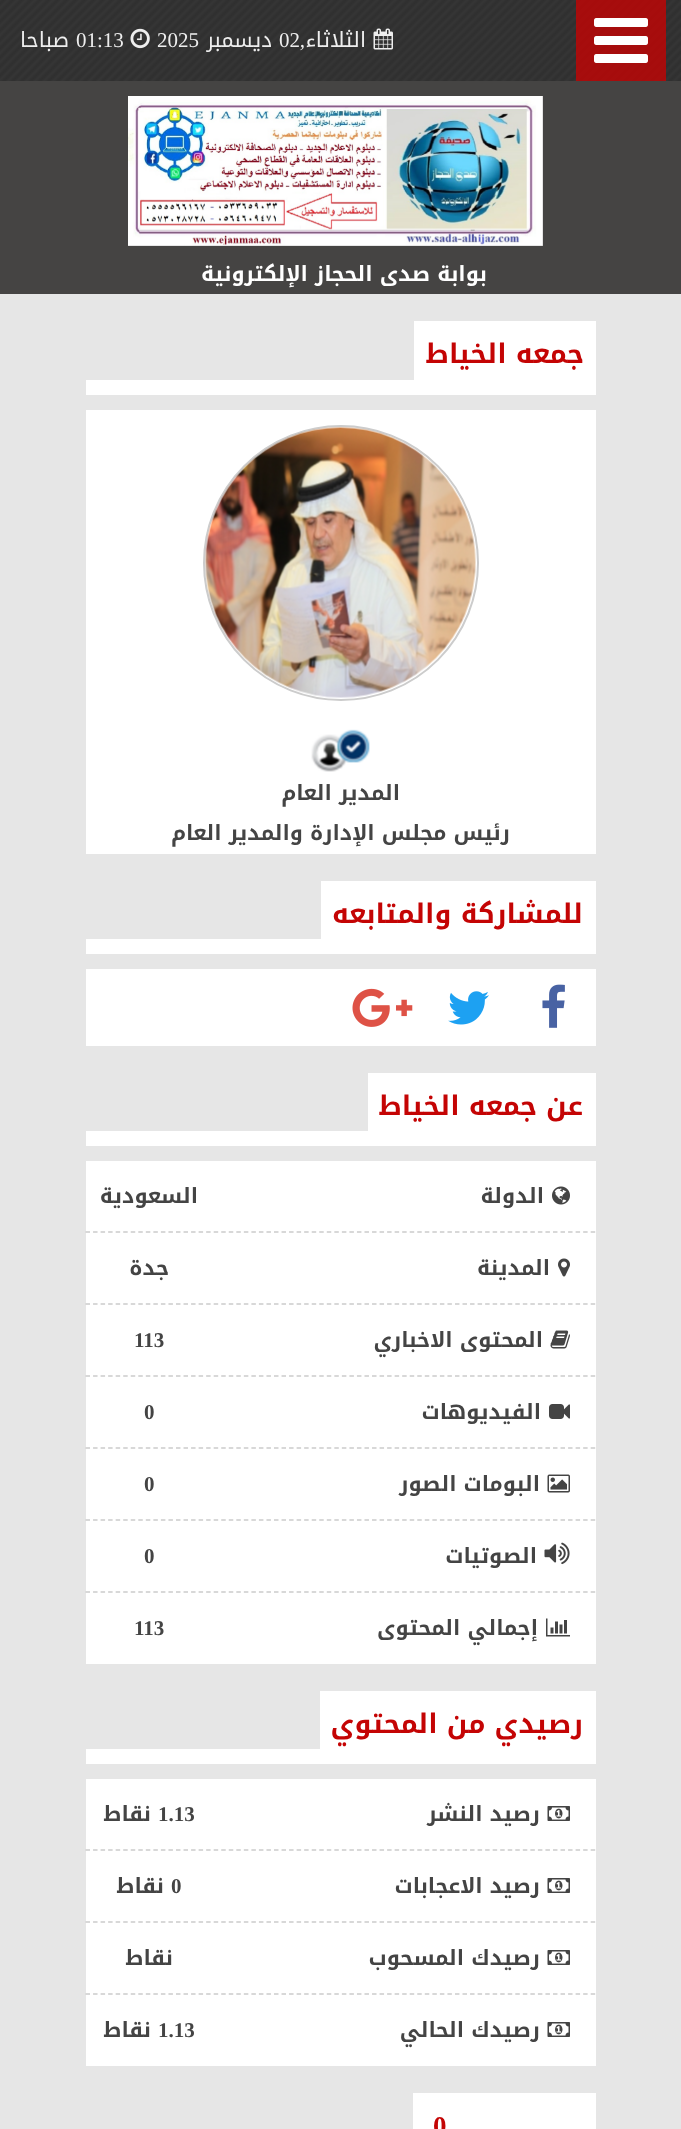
<!DOCTYPE html>
<meta charset="utf-8">
<style>body { margin: 0 } canvas { display: block }</style>
<canvas id="canvas" width="681" height="2129"></canvas>
<script type="module">
  const canvas = document.getElementById("canvas");
  const g = canvas.getContext("2d");
  g.miterLimit = 4;
  g.fontKerning = "normal";
  function drawText(s, x, y, [font, color]) {
    g.font = font;
    g.fillStyle = color;
    g.fillText(s, x, y);
  }
  function fillBox(x, y, w, h, color) {
    g.fillStyle = color;
    g.fillRect(x, y, w, h);
  }
  async function drawPicture(src, x, y, w, h) {
    const img = new Image();
    img.src = src;
    await img.decode();
    g.drawImage(img, x, y, w, h);
  }

  const s1 = ["21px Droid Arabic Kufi", "#EEEEEE"];
  const s2 = ["21px Liberation Serif", "#EEEEEE"];
  const s3 = ["bold 21px Droid Arabic Kufi", "#FFFFFF"];
  const s4 = ["bold 27px Droid Arabic Kufi", "#C40404"];
  const s5 = ["bold 21px Droid Arabic Kufi", "#444444"];
  const s6 = ["bold 21px Liberation Serif", "#444444"];
  const s7 = ["bold 27px Liberation Serif", "#C40404"];

  fillBox(0, 0, 681, 2129, "#E6E6E6");
  fillBox(0, 0, 681, 81, "#353535");
  await drawPicture("pic1.png", 0, 0, 681, 81);
  fillBox(576, 0, 90, 81, "rgba(196, 4, 4, 0.8)");
  await drawPicture("pic2.png", 594, 18, 54, 45);
  await drawPicture("pic3.png", 373, 28, 20, 22);
  g.direction = "rtl";
  drawText("الثلاثاء", 366, 47, s1);
  drawText(",", 305, 47, s2);
  g.direction = "ltr";
  drawText("02", 279, 47, s2);
  g.direction = "rtl";
  drawText("ديسمبر", 272, 47, s1);
  g.direction = "ltr";
  drawText("2025", 157, 47, s2);
  await drawPicture("pic4.png", 130, 28, 20, 21);
  drawText("01:13", 76, 47, s2);
  g.direction = "rtl";
  drawText("صباحا", 69, 47, s1);
  fillBox(0, 81, 681, 213, "#454443");
  await drawPicture("pic5.png", 128, 96, 415, 150);
  drawText("بوابة صدى الحجاز الإلكترونية", 487, 281, s3);
  fillBox(414, 321, 182, 59, "#FFFFFF");
  drawText("جمعه الخياط", 584, 363, s4);
  fillBox(86, 380, 510, 15, "#FFFFFF");
  fillBox(86, 410, 510, 444, "#FFFFFF");
  g.beginPath();
  g.arc(341, 563, 137, 0, Math.PI * 2);
  g.strokeStyle = "#CCCCCC";
  g.lineWidth = 2;
  g.stroke();
  await drawPicture("pic6.png", 205, 427, 271, 271);
  await drawPicture("pic7.png", 311, 729, 59, 43);
  drawText("المدير العام", 400, 800, s5);
  drawText("رئيس مجلس الإدارة والمدير العام", 510, 840, s5);
  fillBox(321, 881, 275, 58, "#FFFFFF");
  drawText("للمشاركة والمتابعه", 583, 923, s4);
  fillBox(86, 939, 510, 15, "#FFFFFF");
  fillBox(86, 969, 510, 77, "#FFFFFF");
  await drawPicture("pic8.png", 542, 984, 23, 44);
  await drawPicture("pic9.png", 448, 991, 41, 34);
  await drawPicture("pic10.png", 352, 988, 61, 39);
  fillBox(368, 1073, 228, 58, "#FFFFFF");
  drawText("عن جمعه الخياط", 583, 1115, s4);
  fillBox(86, 1131, 510, 15, "#FFFFFF");
  fillBox(86, 1161, 510, 503, "#FFFFFF");
  g.beginPath();
  g.moveTo(85.5, 1232);
  g.lineTo(595.5, 1232);
  g.lineWidth = 1.5;
  g.setLineDash([4.5, 3.04]);
  g.stroke();
  await drawPicture("pic11.png", 552, 1186, 18, 19);
  drawText("الدولة", 544, 1203, s5);
  drawText("السعودية", 198, 1203, s5);
  g.beginPath();
  g.moveTo(85.5, 1304);
  g.lineTo(595.5, 1304);
  g.stroke();
  await drawPicture("pic12.png", 558, 1258, 12, 19);
  drawText("المدينة", 550, 1275, s5);
  drawText("جدة", 169, 1275, s5);
  g.beginPath();
  g.moveTo(85.5, 1376);
  g.lineTo(595.5, 1376);
  g.stroke();
  await drawPicture("pic13.png", 550, 1330, 20, 19);
  drawText("المحتوى الاخباري", 543, 1347, s5);
  g.direction = "ltr";
  drawText("113", 134, 1347, s6);
  g.beginPath();
  g.moveTo(85.5, 1448);
  g.lineTo(595.5, 1448);
  g.stroke();
  await drawPicture("pic14.png", 549, 1404, 21, 15);
  g.direction = "rtl";
  drawText("الفيديوهات", 541, 1419, s5);
  g.direction = "ltr";
  drawText("0", 144, 1419, s6);
  g.beginPath();
  g.moveTo(85.5, 1520);
  g.lineTo(595.5, 1520);
  g.stroke();
  await drawPicture("pic15.png", 547, 1474, 23, 19);
  g.direction = "rtl";
  drawText("البومات الصور", 540, 1491, s5);
  g.direction = "ltr";
  drawText("0", 144, 1491, s6);
  g.beginPath();
  g.moveTo(85.5, 1592);
  g.lineTo(595.5, 1592);
  g.stroke();
  await drawPicture("pic16.png", 544, 1542, 26, 23);
  g.direction = "rtl";
  drawText("الصوتيات", 537, 1563, s5);
  g.direction = "ltr";
  drawText("0", 144, 1563, s6);
  await drawPicture("pic17.png", 546, 1618, 24, 19);
  g.direction = "rtl";
  drawText("إجمالي المحتوى", 538, 1635, s5);
  g.direction = "ltr";
  drawText("113", 134, 1635, s6);
  fillBox(320, 1691, 276, 58, "#FFFFFF");
  g.direction = "rtl";
  drawText("رصيدي من المحتوي", 583, 1733, s4);
  fillBox(86, 1749, 510, 15, "#FFFFFF");
  fillBox(86, 1779, 510, 287, "#FFFFFF");
  g.beginPath();
  g.moveTo(85.5, 1850);
  g.lineTo(595.5, 1850);
  g.stroke();
  await drawPicture("pic18.png", 547, 1806, 23, 15);
  drawText("رصيد النشر", 540, 1821, s5);
  g.direction = "ltr";
  drawText("1.13", 158, 1821, s6);
  g.direction = "rtl";
  drawText("نقاط", 151, 1821, s5);
  g.beginPath();
  g.moveTo(85.5, 1922);
  g.lineTo(595.5, 1922);
  g.stroke();
  await drawPicture("pic18.png", 547, 1878, 23, 15);
  drawText("رصيد الاعجابات", 540, 1893, s5);
  g.direction = "ltr";
  drawText("0", 171, 1893, s6);
  g.direction = "rtl";
  drawText("نقاط", 164, 1893, s5);
  g.beginPath();
  g.moveTo(85.5, 1994);
  g.lineTo(595.5, 1994);
  g.stroke();
  await drawPicture("pic18.png", 547, 1950, 23, 15);
  drawText("رصيدك المسحوب", 540, 1965, s5);
  drawText("نقاط", 173, 1965, s5);
  await drawPicture("pic18.png", 547, 2022, 23, 15);
  drawText("رصيدك الحالي", 540, 2037, s5);
  g.direction = "ltr";
  drawText("1.13", 158, 2037, s6);
  g.direction = "rtl";
  drawText("نقاط", 151, 2037, s5);
  fillBox(413, 2093, 183, 36, "#FFFFFF");
  g.direction = "ltr";
  drawText("0", 433, 2135, s7);
</script>
